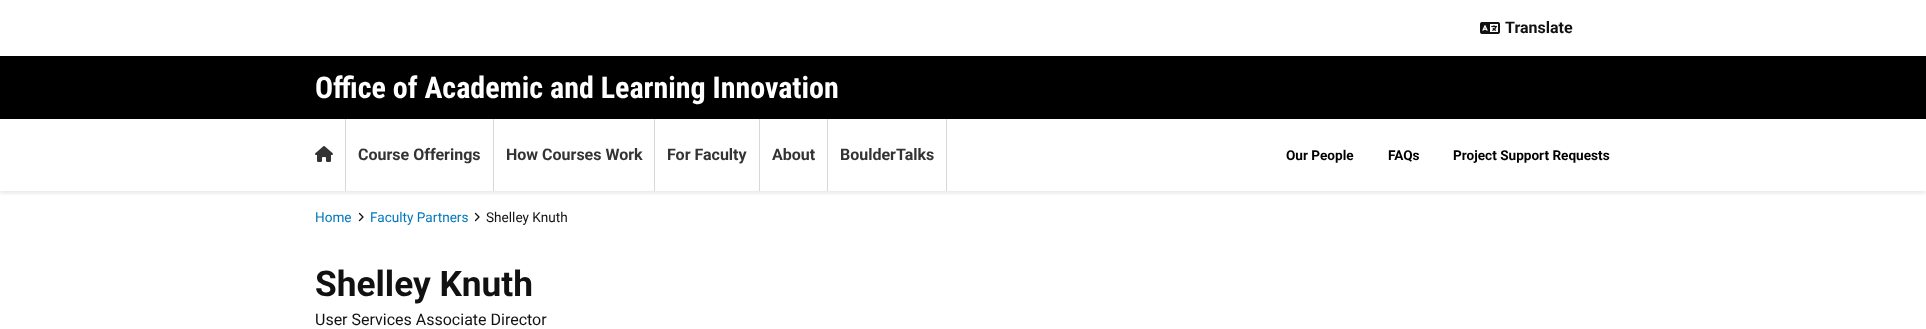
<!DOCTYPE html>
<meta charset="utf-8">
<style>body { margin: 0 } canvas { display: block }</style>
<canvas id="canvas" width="1926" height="329"></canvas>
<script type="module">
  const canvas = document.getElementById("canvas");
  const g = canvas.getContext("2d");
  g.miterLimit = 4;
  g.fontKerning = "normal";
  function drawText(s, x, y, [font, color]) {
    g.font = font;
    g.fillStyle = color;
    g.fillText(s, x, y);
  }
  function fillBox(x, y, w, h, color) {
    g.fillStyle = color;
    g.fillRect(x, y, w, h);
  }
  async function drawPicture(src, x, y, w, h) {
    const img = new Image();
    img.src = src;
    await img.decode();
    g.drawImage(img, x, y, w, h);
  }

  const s1 = ["bold 16px Roboto", "#111111"];
  const s2 = ["bold 30px Roboto Condensed", "#FFFFFF"];
  const s3 = ["bold 16px Roboto", "#333333"];
  const s4 = ["bold 13.6px Roboto", "#000000"];
  const s5 = ["13.6px Roboto", "#0277BD"];
  const s6 = ["13.6px Roboto", "#111111"];
  const s7 = ["bold 35.25px Roboto", "#111111"];
  const s8 = ["16px Roboto", "#111111"];

  fillBox(0, 0, 1926, 329, "#FFFFFF");
  await drawPicture("pic1.png", 1480, 22, 20, 12);
  drawText("Translate", 1505, 33, s1);
  g.save();
  g.beginPath();
  g.rect(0, 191, 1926, 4);
  g.clip();
  g.fillStyle = "rgba(0, 0, 0, 0.1)";
  g.filter = "blur(2.5px)";
  g.beginPath();
  g.rect(0, 121, 1926, 72);
  g.fill();
  g.filter = "none";
  g.restore();
  fillBox(0, 56, 1926, 63, "#000000");
  drawText("Office of Academic and Learning Innovation", 315, 98, s2);
  fillBox(345, 119, 1, 72, "#D7D7D7");
  await drawPicture("pic2.png", 315, 146, 18, 16);
  fillBox(493, 119, 1, 72, "#D7D7D7");
  drawText("Course Offerings", 358, 160, s3);
  fillBox(654, 119, 1, 72, "#D7D7D7");
  drawText("How Courses Work", 506, 160, s3);
  fillBox(759, 119, 1, 72, "#D7D7D7");
  drawText("For Faculty", 667, 160, s3);
  fillBox(827, 119, 1, 72, "#D7D7D7");
  drawText("About", 772, 160, s3);
  fillBox(946, 119, 1, 72, "#D7D7D7");
  drawText("BoulderTalks", 840, 160, s3);
  drawText("Our People", 1286, 160, s4);
  drawText("FAQs", 1388, 160, s4);
  drawText("Project Support Requests", 1453, 160, s4);
  drawText("Home", 315, 222, s5);
  g.beginPath();
  g.moveTo(359.5, 220.5);
  g.lineTo(363, 217);
  g.lineTo(359.5, 213.5);
  g.strokeStyle = "#111111";
  g.lineWidth = 1.3;
  g.lineCap = "round";
  g.lineJoin = "round";
  g.stroke();
  drawText("Faculty Partners", 370, 222, s5);
  g.beginPath();
  g.moveTo(475.5, 220.5);
  g.lineTo(479, 217);
  g.lineTo(475.5, 213.5);
  g.stroke();
  drawText("Shelley Knuth", 486, 222, s6);
  drawText("Shelley Knuth", 315, 296, s7);
  drawText("User Services Associate Director", 315, 325, s8);
</script>
